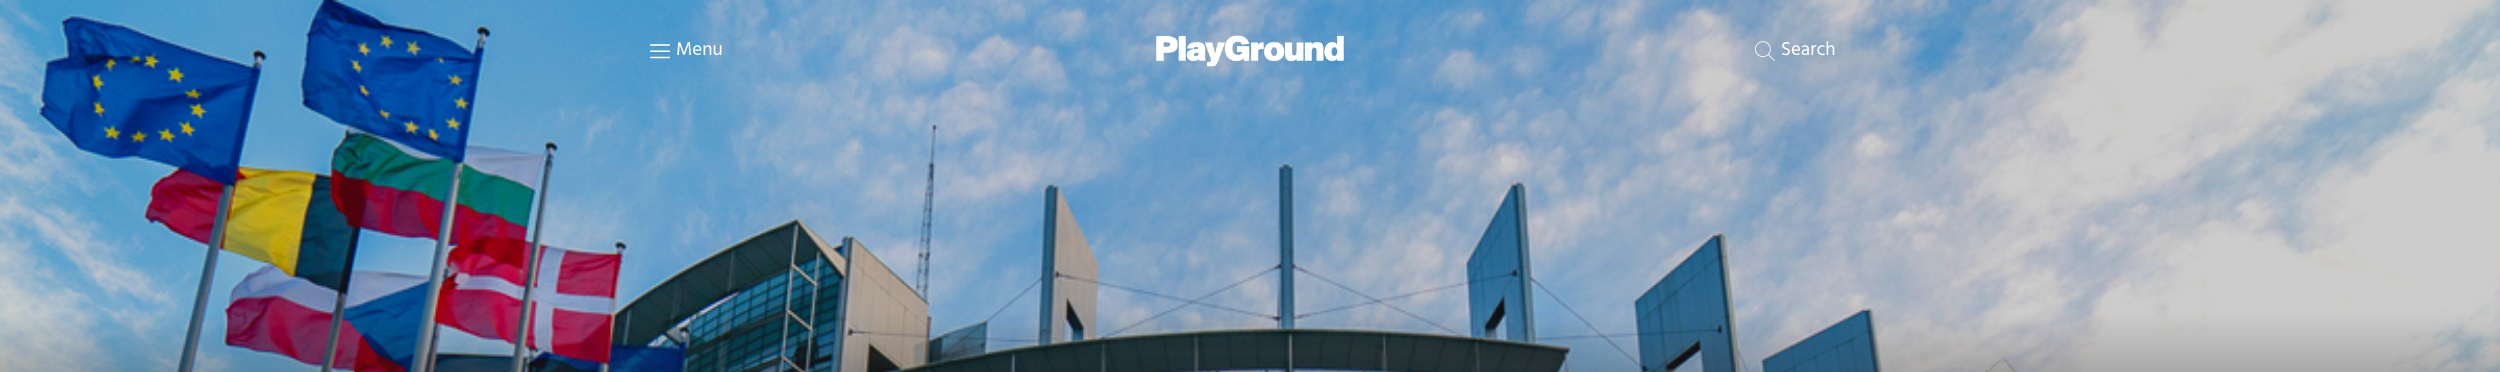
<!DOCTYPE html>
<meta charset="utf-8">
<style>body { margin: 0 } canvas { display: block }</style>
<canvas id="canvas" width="2500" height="372"></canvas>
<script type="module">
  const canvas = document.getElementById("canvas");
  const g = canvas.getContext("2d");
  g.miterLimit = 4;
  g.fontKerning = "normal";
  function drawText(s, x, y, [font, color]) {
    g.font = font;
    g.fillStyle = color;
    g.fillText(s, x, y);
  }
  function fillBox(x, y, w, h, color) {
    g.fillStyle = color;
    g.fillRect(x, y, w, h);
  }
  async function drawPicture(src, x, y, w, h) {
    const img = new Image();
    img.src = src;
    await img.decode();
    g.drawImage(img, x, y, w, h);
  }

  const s1 = ["19px Hind", "#FFFFFF"];

  fillBox(0, 0, 2500, 372, "#FFFFFF");
  await drawPicture("pic1.png", 0, 0, 2500, 372);
  await drawPicture("pic2.png", 1156, 35, 188, 32);
  await drawPicture("pic3.png", 650, 44, 20, 15);
  drawText("Menu", 676, 55, s1);
  await drawPicture("pic4.png", 1755, 41, 20, 20);
  drawText("Search", 1781, 55, s1);
</script>
